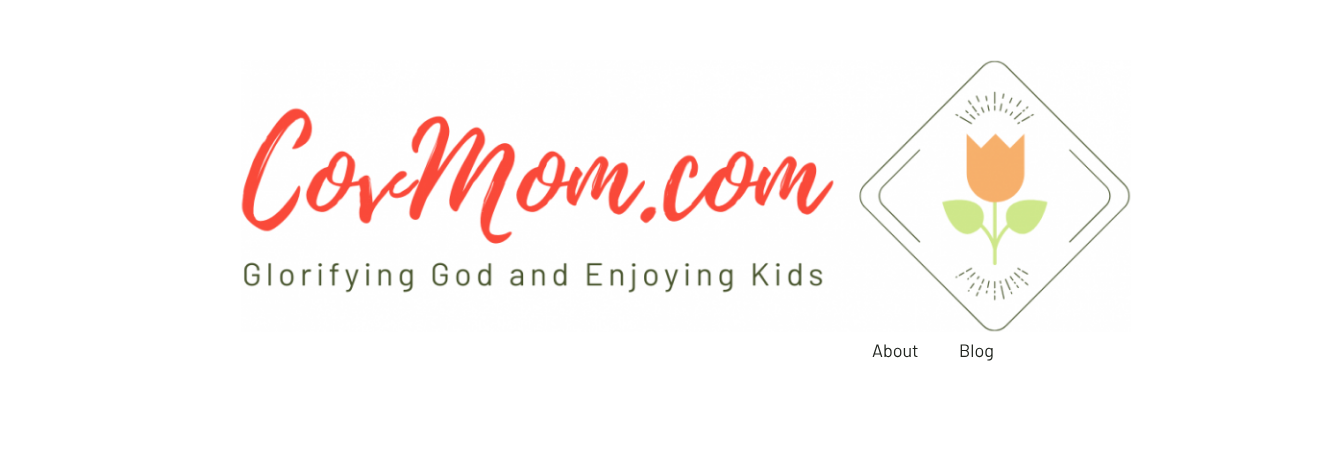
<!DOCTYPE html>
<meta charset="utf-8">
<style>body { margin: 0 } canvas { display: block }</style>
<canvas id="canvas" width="1337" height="455"></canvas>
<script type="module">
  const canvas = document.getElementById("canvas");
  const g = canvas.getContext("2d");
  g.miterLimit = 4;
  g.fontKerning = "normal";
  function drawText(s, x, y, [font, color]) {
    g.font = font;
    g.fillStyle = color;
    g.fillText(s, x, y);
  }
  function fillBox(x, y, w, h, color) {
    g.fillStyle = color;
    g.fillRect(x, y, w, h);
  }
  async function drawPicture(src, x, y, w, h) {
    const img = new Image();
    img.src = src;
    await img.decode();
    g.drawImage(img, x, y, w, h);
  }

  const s1 = ["18px Barlow", "#21251F"];

  fillBox(0, 0, 1337, 455, "#FFFFFF");
  await drawPicture("pic1.png", 241, 60, 890, 272);
  drawText("About", 872, 357, s1);
  drawText("Blog", 959, 357, s1);
</script>
